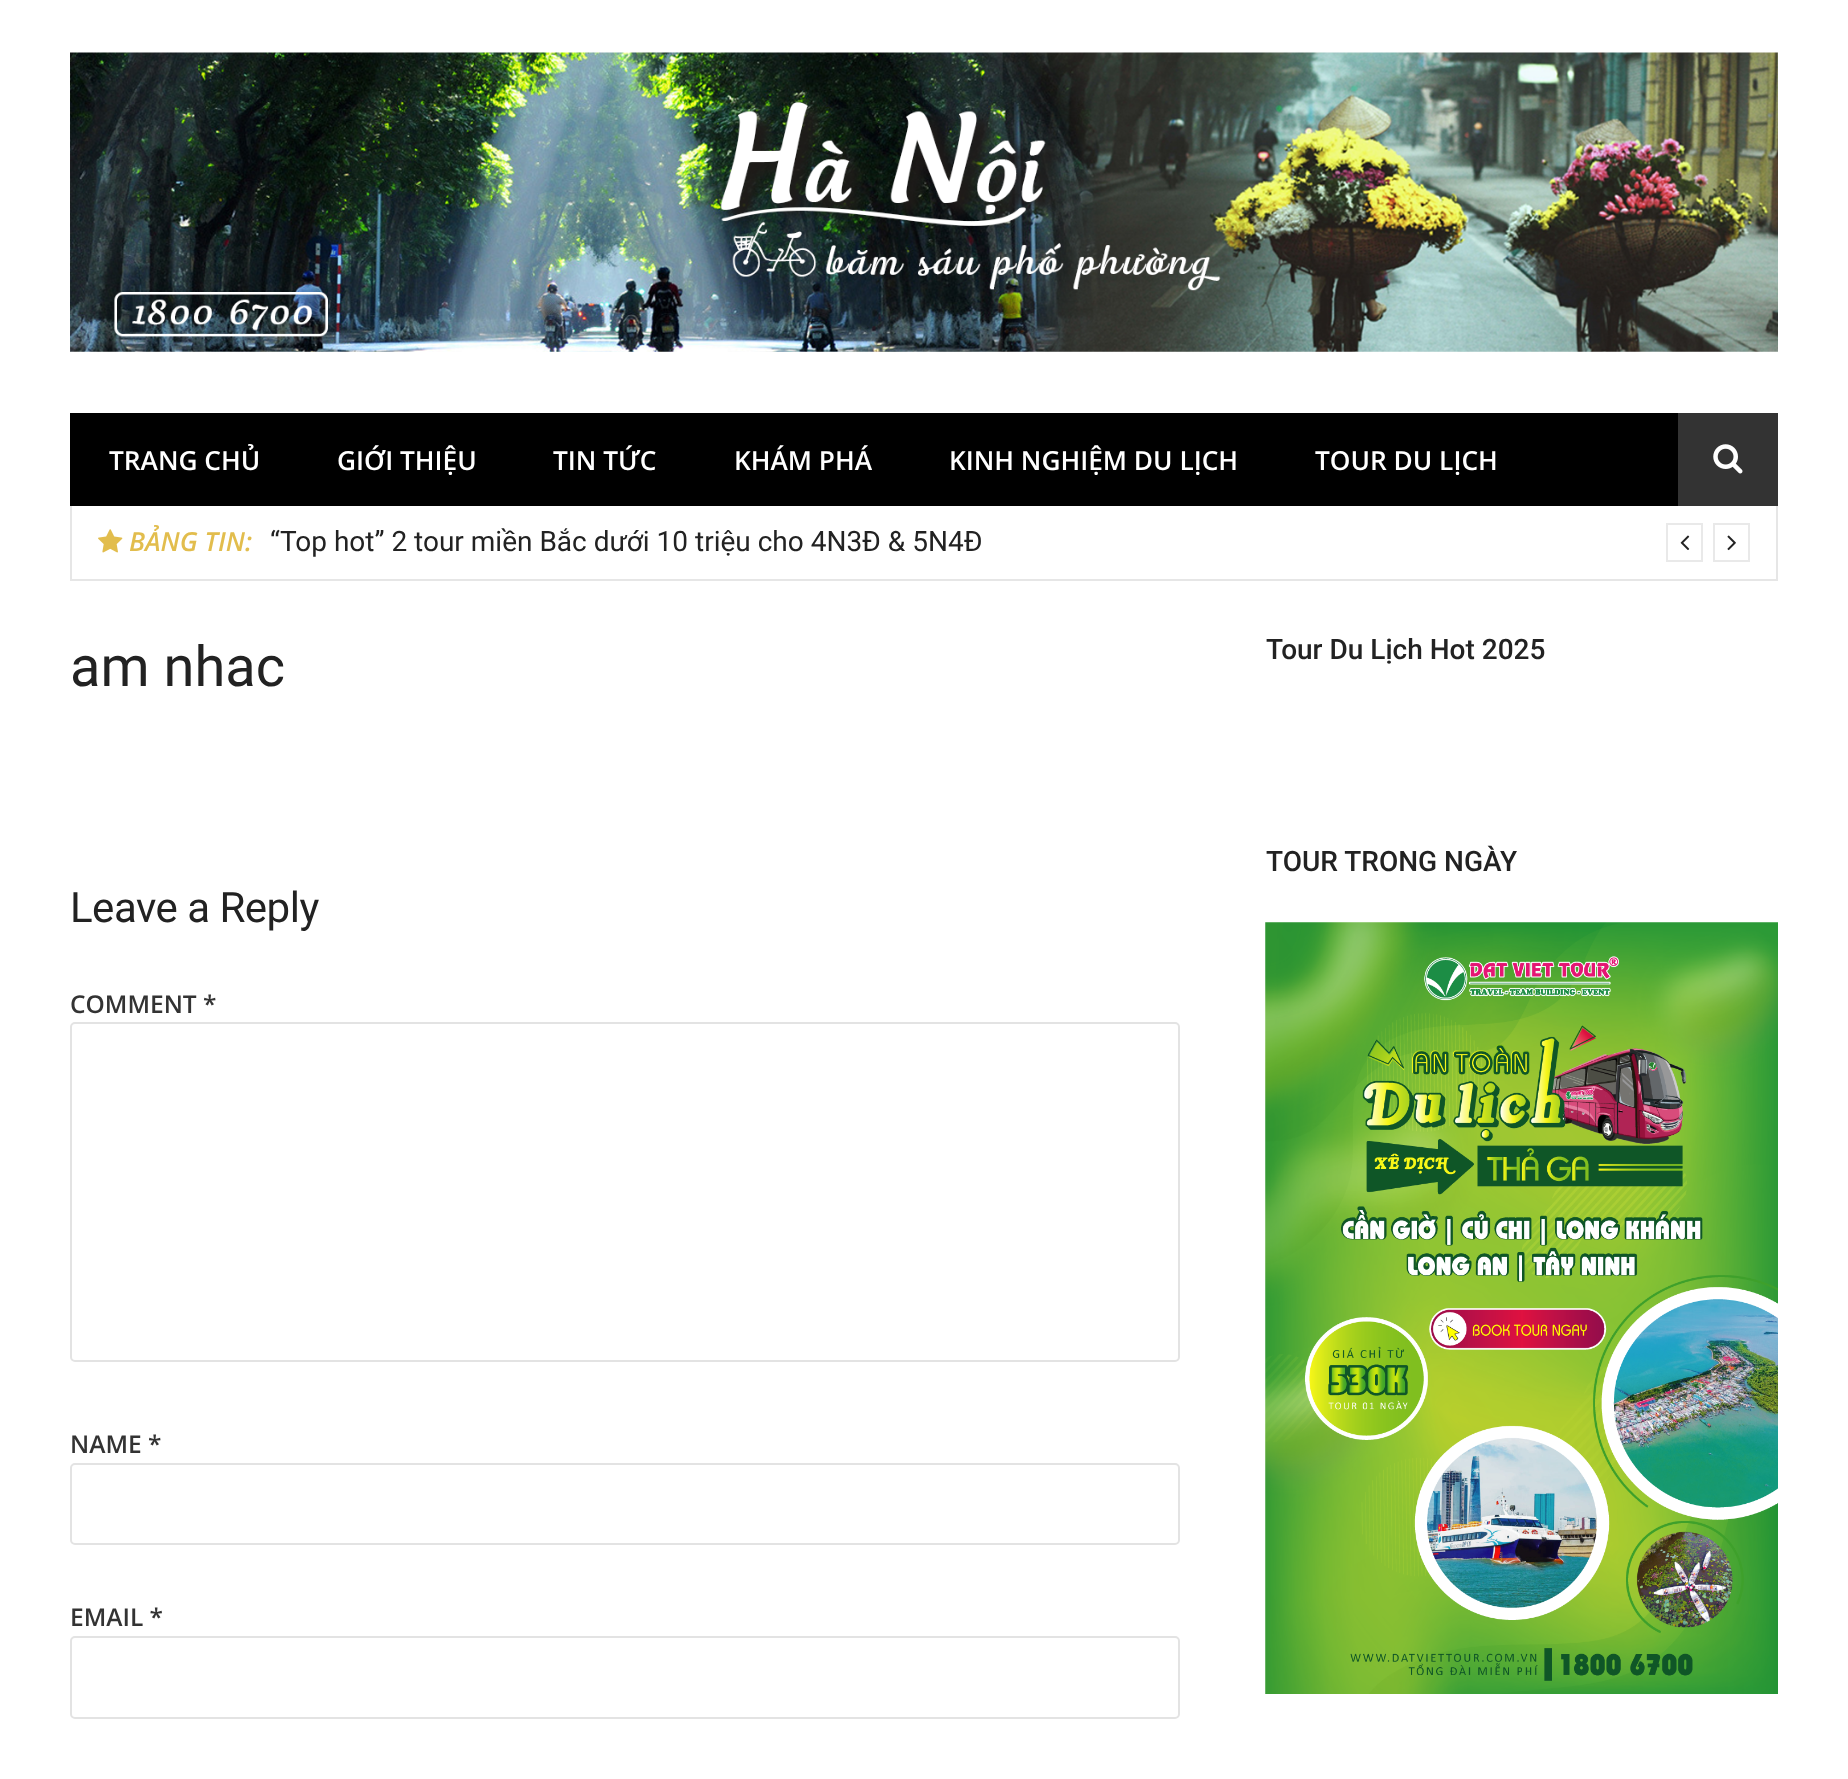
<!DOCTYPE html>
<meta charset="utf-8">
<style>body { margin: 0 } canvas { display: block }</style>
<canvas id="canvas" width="1848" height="1779"></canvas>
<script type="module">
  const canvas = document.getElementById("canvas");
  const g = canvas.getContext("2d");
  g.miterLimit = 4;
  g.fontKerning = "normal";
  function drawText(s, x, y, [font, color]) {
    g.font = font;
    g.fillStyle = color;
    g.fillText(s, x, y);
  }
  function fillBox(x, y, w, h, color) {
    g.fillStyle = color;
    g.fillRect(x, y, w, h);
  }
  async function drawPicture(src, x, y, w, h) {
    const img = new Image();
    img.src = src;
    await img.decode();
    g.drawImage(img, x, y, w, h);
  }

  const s1 = ["600 26.25px Open Sans", "#FFFFFF"];
  const s2 = ["italic 600 26.25px Open Sans", "#E2BD4D"];
  const s3 = ["28px Roboto", "#222222"];
  const s4 = ["56px Roboto", "#222222"];
  const s5 = ["42px Roboto", "#222222"];
  const s6 = ["600 24.5px Open Sans", "#333333"];
  const s7 = ["500 28px Roboto", "#222222"];

  fillBox(0, 0, 1848, 1779, "#FFFFFF");
  await drawPicture("pic1.png", 70, 52, 1708, 300);
  fillBox(70, 413, 1608, 93, "#000000");
  drawText("TRANG CHỦ", 109, 470, s1);
  drawText("GIỚI THIỆU", 337, 470, s1);
  drawText("TIN TỨC", 553, 470, s1);
  drawText("KHÁM PHÁ", 734, 470, s1);
  drawText("KINH NGHIỆM DU LỊCH", 949, 470, s1);
  drawText("TOUR DU LỊCH", 1315, 470, s1);
  fillBox(1678, 413, 100, 93, "#333333");
  await drawPicture("pic2.png", 1713, 444, 30, 30);
  fillBox(1776, 506, 2, 75, "#E6E6E6");
  fillBox(70, 579, 1708, 2, "#E6E6E6");
  fillBox(70, 506, 2, 75, "#E6E6E6");
  await drawPicture("pic3.png", 98, 529, 25, 24);
  drawText("BẢNG TIN:", 129, 551, s2);
  drawText("“Top hot” 2 tour miền Bắc dưới 10 triệu cho 4N3Đ & 5N4Đ", 270, 551, s3);
  g.strokeStyle = "#E9E9E9";
  g.lineWidth = 2;
  g.strokeRect(1667, 524, 35, 37);
  await drawPicture("pic4.png", 1680, 535, 10, 15);
  g.strokeRect(1714, 524, 35, 37);
  await drawPicture("pic5.png", 1727, 535, 9, 16);
  drawText("am nhac", 70, 686, s4);
  g.letterSpacing = "-0.5px";
  drawText("Leave a Reply", 70, 922, s5);
  g.letterSpacing = "0px";
  drawText("COMMENT *", 70, 1013, s6);
  g.beginPath();
  g.roundRect(71, 1023, 1108, 338, 4);
  g.strokeStyle = "#E3E3E3";
  g.stroke();
  drawText("NAME *", 70, 1453, s6);
  g.beginPath();
  g.roundRect(71, 1464, 1108, 80, 4);
  g.stroke();
  drawText("EMAIL *", 70, 1626, s6);
  g.beginPath();
  g.roundRect(71, 1637, 1108, 81, 4);
  g.stroke();
  drawText("Tour Du Lịch Hot 2025", 1266, 659, s7);
  drawText("TOUR TRONG NGÀY", 1266, 871, s7);
  await drawPicture("pic6.png", 1265, 922, 513, 772);
</script>
